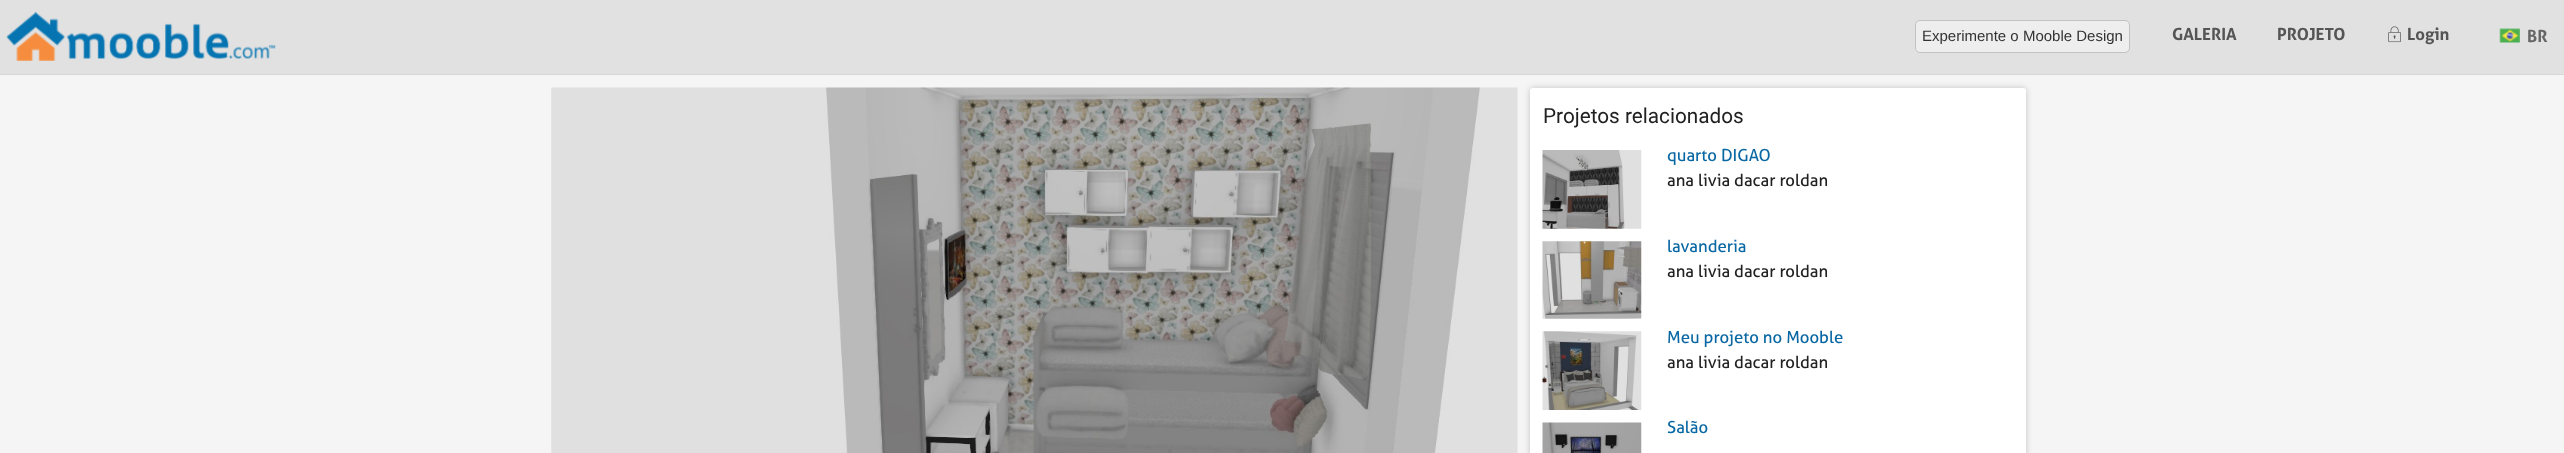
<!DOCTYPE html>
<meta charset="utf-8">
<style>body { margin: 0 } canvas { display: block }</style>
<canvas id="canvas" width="2564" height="453"></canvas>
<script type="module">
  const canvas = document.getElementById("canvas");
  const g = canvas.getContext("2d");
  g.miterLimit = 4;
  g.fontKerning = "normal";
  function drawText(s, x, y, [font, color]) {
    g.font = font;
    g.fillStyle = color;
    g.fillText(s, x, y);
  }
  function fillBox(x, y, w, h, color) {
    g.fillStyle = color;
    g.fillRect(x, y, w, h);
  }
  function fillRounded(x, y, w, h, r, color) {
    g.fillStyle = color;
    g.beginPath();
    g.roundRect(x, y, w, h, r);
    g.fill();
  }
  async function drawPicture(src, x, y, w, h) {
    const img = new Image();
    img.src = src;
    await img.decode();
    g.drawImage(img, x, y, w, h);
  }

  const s1 = ["15px Liberation Sans", "#333333"];
  const s2 = ["bold 16.75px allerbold", "#555555"];
  const s3 = ["bold 16.75px allerbold", "#666666"];
  const s4 = ["20.75px Roboto", "#222222"];
  const s5 = ["16.75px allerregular", "#0967A3"];
  const s6 = ["16.75px allerregular", "#222222"];

  fillBox(0, 0, 2564, 453, "#F5F5F5");
  fillBox(0, 0, 2564, 74, "#E1E1E1");
  fillBox(0, 74, 2564, 1, "#D8D8D8");
  await drawPicture("pic1.png", 6, 12, 270, 49);
  g.fillStyle = "#EEEEEE";
  g.beginPath();
  g.roundRect(1915.5, 20.5, 214, 32, 4.5);
  g.fill();
  g.strokeStyle = "#C2C2C2";
  g.stroke();
  drawText("Experimente o Mooble Design", 1922, 41, s1);
  drawText("GALERIA", 2172, 40, s2);
  drawText("PROJETO", 2277, 40, s2);
  await drawPicture("pic2.png", 2388, 26, 13, 17);
  drawText("Login", 2407, 40, s2);
  await drawPicture("pic3.png", 2499, 28, 21, 15);
  drawText("BR", 2527, 42, s3);
  await drawPicture("pic4.png", 551, 87, 967, 366);
  g.fillStyle = "rgba(0, 0, 0, 0.2)";
  g.filter = "blur(3px)";
  g.beginPath();
  g.roundRect(1530, 88, 496, 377, 2.5);
  g.fill();
  g.filter = "none";
  fillRounded(1530, 88, 496, 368, 2.5, "#FFFFFF");
  drawText("Projetos relacionados", 1543, 123, s4);
  await drawPicture("pic5.png", 1542, 150, 100, 79);
  drawText("quarto DIGAO", 1667, 161, s5);
  drawText("ana livia dacar roldan", 1667, 186, s6);
  await drawPicture("pic6.png", 1542, 241, 100, 78);
  drawText("lavanderia", 1667, 252, s5);
  drawText("ana livia dacar roldan", 1667, 277, s6);
  await drawPicture("pic7.png", 1542, 331, 100, 79);
  drawText("Meu projeto no Mooble", 1667, 343, s5);
  drawText("ana livia dacar roldan", 1667, 368, s6);
  await drawPicture("pic8.png", 1542, 422, 100, 31);
  drawText("Salão", 1667, 433, s5);
</script>
